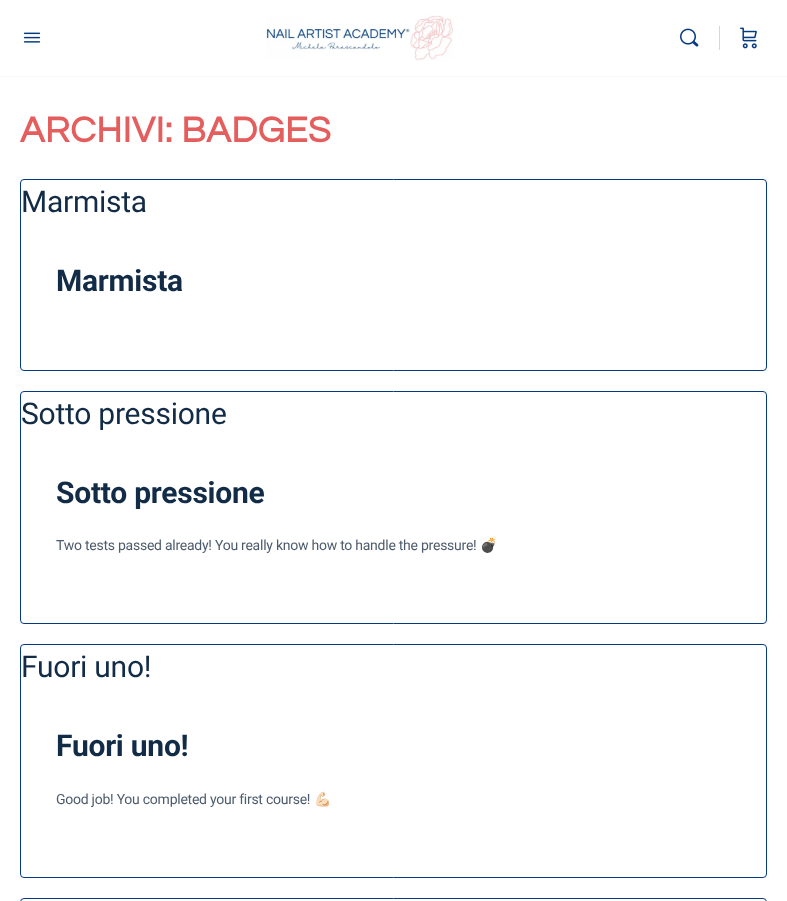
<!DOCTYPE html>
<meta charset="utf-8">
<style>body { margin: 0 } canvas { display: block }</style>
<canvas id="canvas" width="787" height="901"></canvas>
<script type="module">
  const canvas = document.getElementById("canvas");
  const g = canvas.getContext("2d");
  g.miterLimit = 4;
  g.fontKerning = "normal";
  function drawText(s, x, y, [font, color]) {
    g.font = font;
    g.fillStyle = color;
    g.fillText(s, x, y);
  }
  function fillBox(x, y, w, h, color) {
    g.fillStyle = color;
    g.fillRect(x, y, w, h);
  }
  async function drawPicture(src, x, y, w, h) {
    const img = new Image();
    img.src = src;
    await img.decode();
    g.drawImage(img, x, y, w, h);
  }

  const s1 = ["bold 37px Questrial", "#E45E5E"];
  const s2 = ["30px Roboto", "#122B46"];
  const s3 = ["bold 30px Roboto", "#122B46"];
  const s4 = ["14px Roboto", "#4D5C6D"];
  const s5 = ["14px Noto Color Emoji", "#4D5C6D"];

  fillBox(0, 0, 787, 901, "#FFFFFF");
  fillBox(0, 76, 787, 1, "#F6F7F8");
  await drawPicture("pic1.png", 24, 32, 16, 11);
  await drawPicture("pic2.png", 266, 15, 188, 46);
  await drawPicture("pic3.png", 680, 28, 19, 19);
  fillBox(719, 26, 1, 24, "#CDD8E6");
  await drawPicture("pic4.png", 740, 27, 17, 22);
  g.letterSpacing = "0.5px";
  drawText("ARCHIVI: BADGES", 20, 142, s1);
  g.beginPath();
  g.roundRect(20.5, 179.5, 746, 191, 3.5);
  g.strokeStyle = "#053A81";
  g.stroke();
  g.letterSpacing = "-0.25px";
  drawText("Marmista", 21, 212, s2);
  drawText("Marmista", 56, 291, s3);
  g.beginPath();
  g.roundRect(20.5, 391.5, 746, 232, 3.5);
  g.stroke();
  drawText("Sotto pressione", 21, 424, s2);
  drawText("Sotto pressione", 56, 503, s3);
  drawText("Two tests passed already! You really know how to handle the pressure!", 56, 550, s4);
  drawText("💣", 480, 550, s5);
  g.beginPath();
  g.roundRect(20.5, 644.5, 746, 233, 3.5);
  g.stroke();
  drawText("Fuori uno!", 21, 677, s2);
  drawText("Fuori uno!", 56, 756, s3);
  drawText("Good job! You completed your first course!", 56, 804, s4);
  drawText("💪🏻", 314, 804, s5);
  g.beginPath();
  g.roundRect(20.5, 898.5, 746, 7, 3.5);
  g.stroke();
</script>
